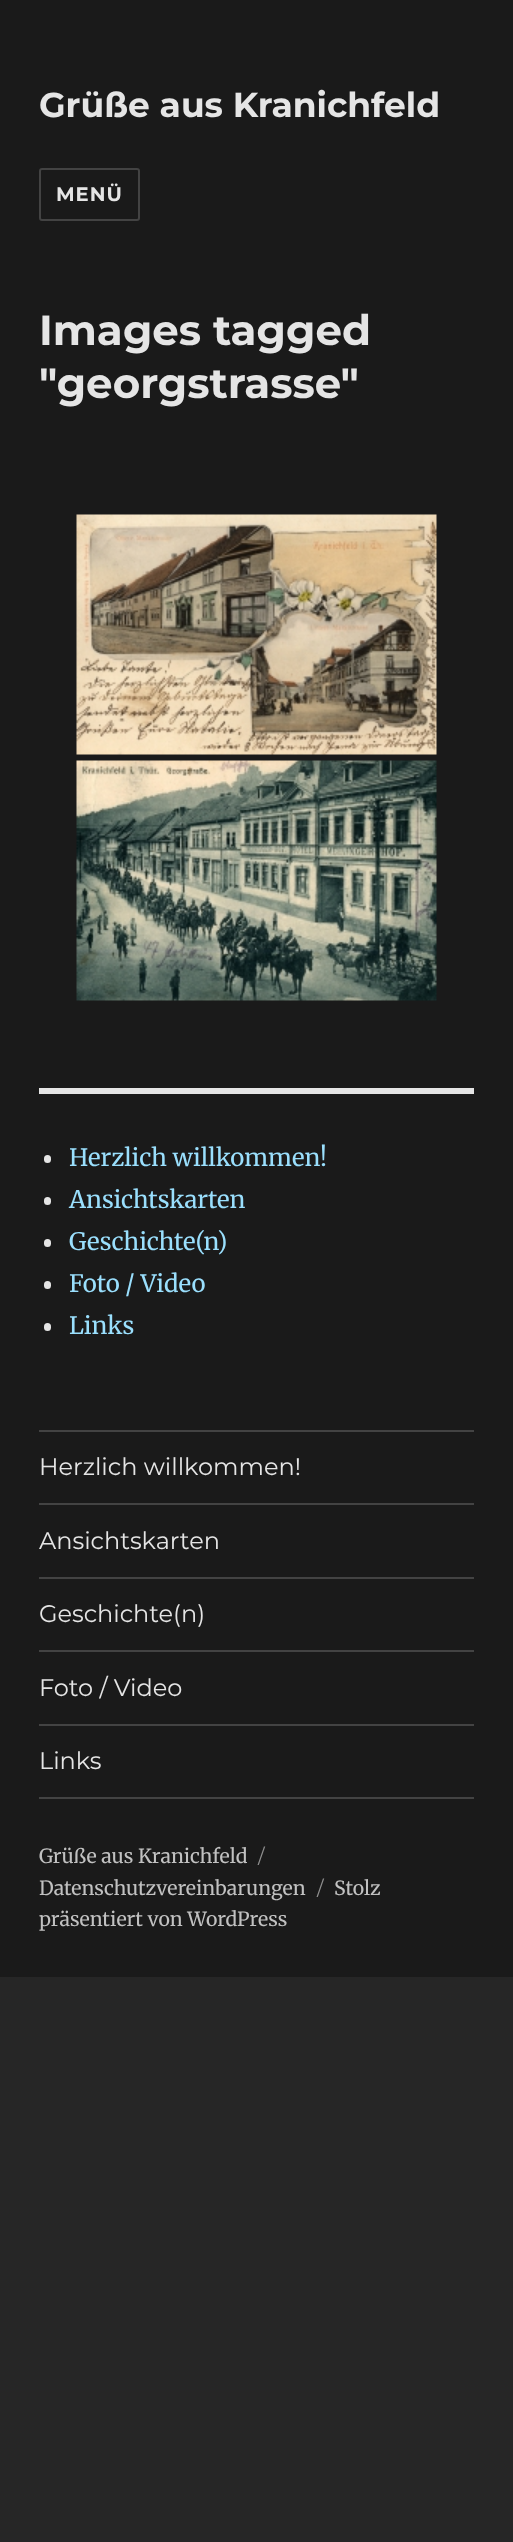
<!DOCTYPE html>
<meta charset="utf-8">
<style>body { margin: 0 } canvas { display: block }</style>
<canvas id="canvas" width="513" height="2542"></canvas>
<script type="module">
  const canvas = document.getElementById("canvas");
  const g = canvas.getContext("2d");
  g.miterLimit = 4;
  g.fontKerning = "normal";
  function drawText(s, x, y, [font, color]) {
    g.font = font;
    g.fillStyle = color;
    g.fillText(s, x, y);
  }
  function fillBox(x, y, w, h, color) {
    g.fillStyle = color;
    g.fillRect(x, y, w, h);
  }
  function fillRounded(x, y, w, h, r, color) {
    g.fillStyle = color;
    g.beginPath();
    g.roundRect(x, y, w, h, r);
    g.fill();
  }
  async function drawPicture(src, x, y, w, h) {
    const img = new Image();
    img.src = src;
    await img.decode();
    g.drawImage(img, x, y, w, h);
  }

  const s1 = ["bold 34.5px Montserrat", "#E5E5E5"];
  const s2 = ["bold 19.5px Montserrat", "#E5E5E5"];
  const s3 = ["bold 42px Montserrat", "#E5E5E5"];
  const s4 = ["24px Merriweather", "#9ADFFD"];
  const s5 = ["24px Montserrat", "#E5E5E5"];
  const s6 = ["19.5px Merriweather", "#C1C1C1"];
  const s7 = ["19.5px Montserrat", "#8F8F8F"];

  fillBox(0, 0, 513, 2542, "#262626");
  fillBox(0, 0, 513, 1977, "#1A1A1A");
  drawText("Grüße aus Kranichfeld", 39, 117, s1);
  g.beginPath();
  g.roundRect(40, 169, 99, 51, 2);
  g.strokeStyle = "#434343";
  g.lineWidth = 2;
  g.stroke();
  g.letterSpacing = "1px";
  drawText("MENÜ", 56, 201, s2);
  g.letterSpacing = "0px";
  drawText("Images tagged", 39, 345, s3);
  drawText("\"georgstrasse\"", 39, 398, s3);
  await drawPicture("pic1.png", 76, 514, 361, 241);
  await drawPicture("pic2.png", 76, 760, 361, 241);
  fillBox(39, 1088, 435, 6, "#E5E5E5");
  fillRounded(44, 1155, 7, 8, 3.5, "#E5E5E5");
  drawText("Herzlich willkommen!", 69, 1166, s4);
  fillRounded(44, 1197, 7, 8, 3.5, "#E5E5E5");
  drawText("Ansichtskarten", 69, 1208, s4);
  fillRounded(44, 1239, 7, 8, 3.5, "#E5E5E5");
  drawText("Geschichte(n)", 69, 1250, s4);
  fillRounded(44, 1281, 7, 8, 3.5, "#E5E5E5");
  drawText("Foto / Video", 69, 1292, s4);
  fillRounded(44, 1323, 7, 8, 3.5, "#E5E5E5");
  drawText("Links", 69, 1334, s4);
  fillBox(39, 1797, 435, 2, "#434343");
  fillBox(39, 1430, 435, 2, "#434343");
  drawText("Herzlich willkommen!", 39, 1475, s5);
  fillBox(39, 1503, 435, 2, "#434343");
  drawText("Ansichtskarten", 39, 1549, s5);
  fillBox(39, 1577, 435, 2, "#434343");
  drawText("Geschichte(n)", 39, 1622, s5);
  fillBox(39, 1650, 435, 2, "#434343");
  drawText("Foto / Video", 39, 1696, s5);
  fillBox(39, 1724, 435, 2, "#434343");
  drawText("Links", 39, 1769, s5);
  drawText("Grüße aus Kranichfeld", 39, 1863, s6);
  drawText("/", 258, 1863, s7);
  drawText("Datenschutzvereinbarungen", 39, 1895, s6);
  drawText("/", 317, 1895, s7);
  drawText("Stolz", 334, 1895, s6);
  drawText("präsentiert von WordPress", 39, 1926, s6);
</script>
